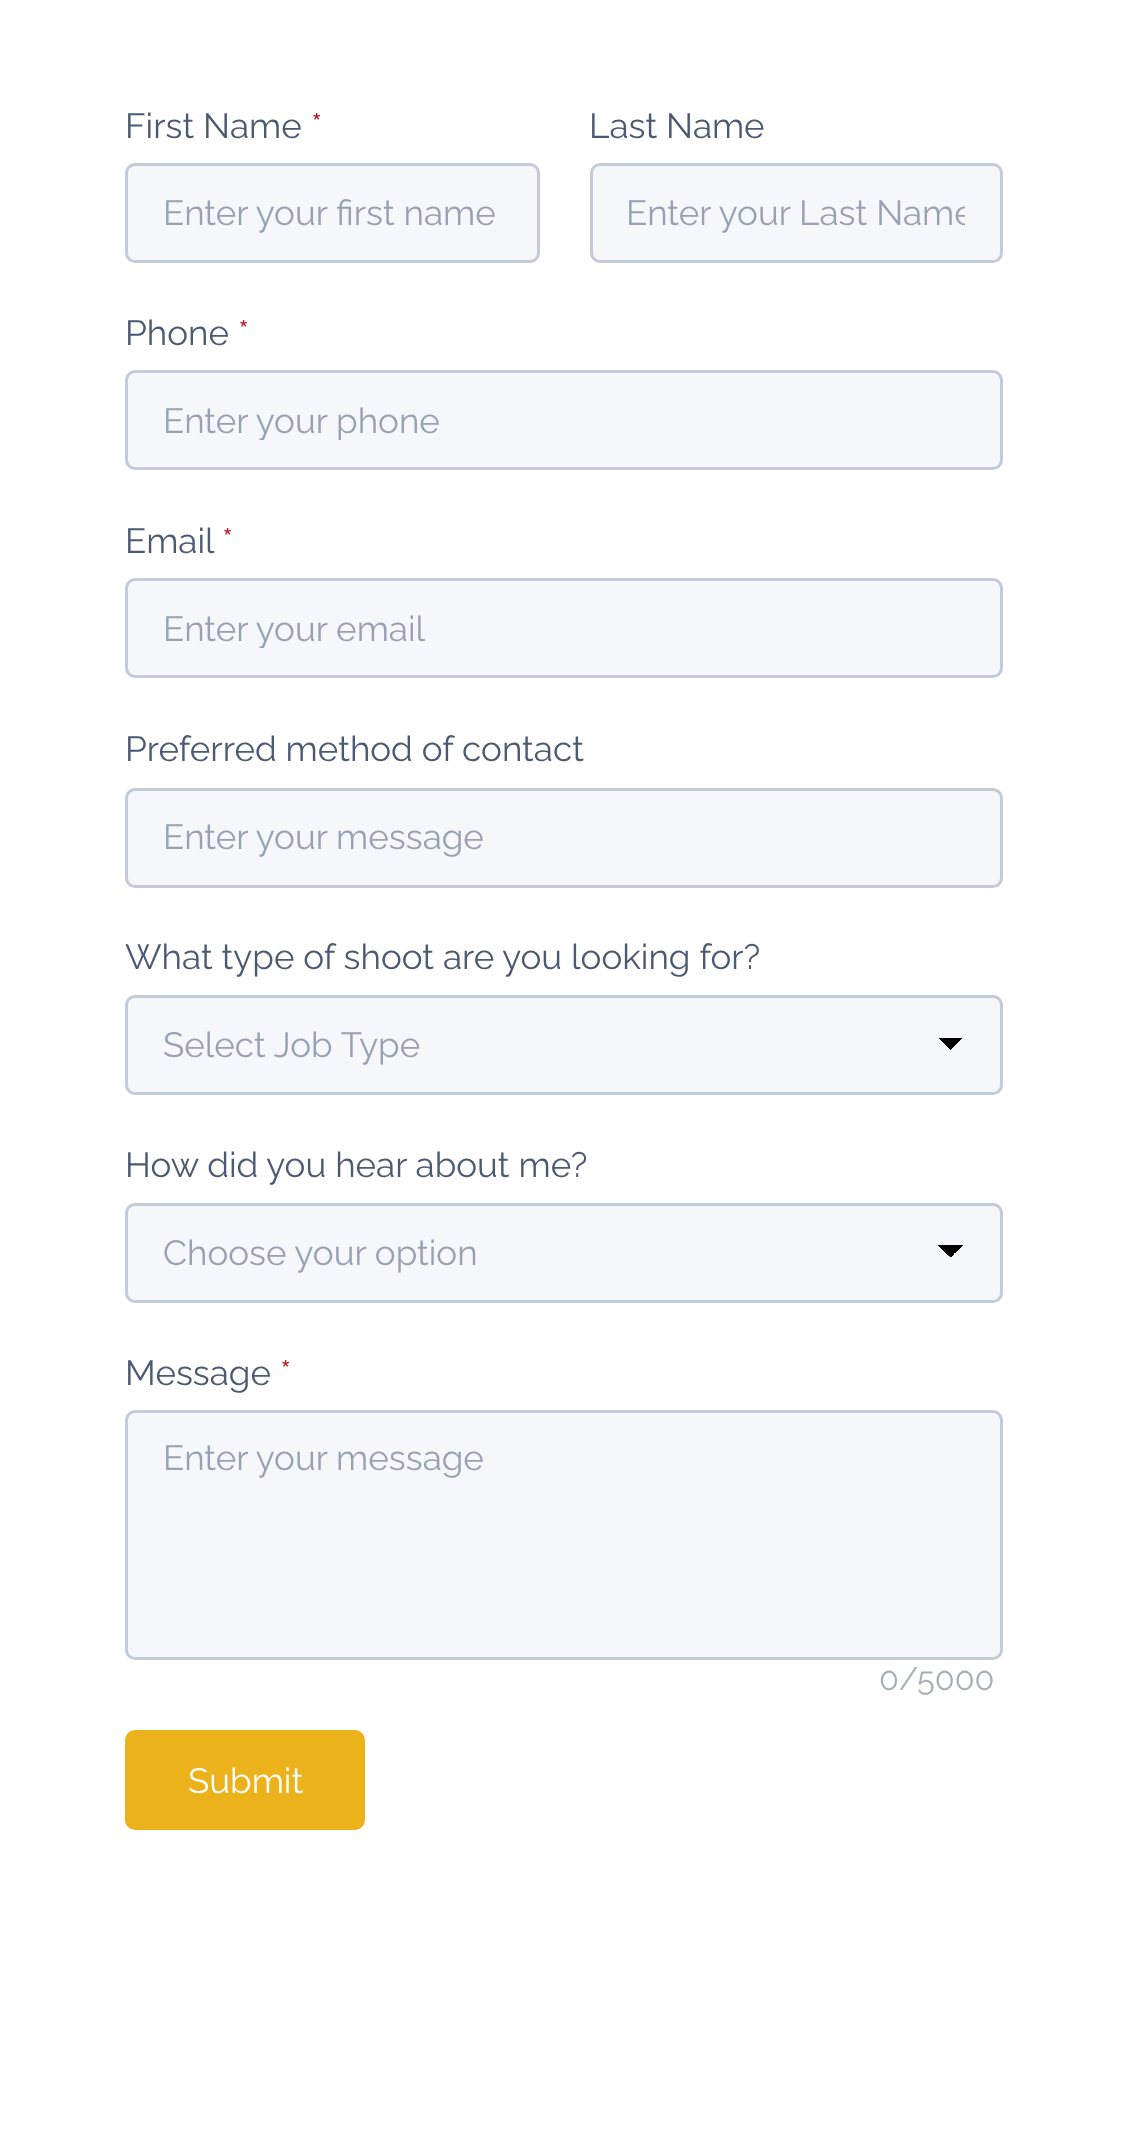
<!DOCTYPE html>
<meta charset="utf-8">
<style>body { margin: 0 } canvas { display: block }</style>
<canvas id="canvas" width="1127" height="2140"></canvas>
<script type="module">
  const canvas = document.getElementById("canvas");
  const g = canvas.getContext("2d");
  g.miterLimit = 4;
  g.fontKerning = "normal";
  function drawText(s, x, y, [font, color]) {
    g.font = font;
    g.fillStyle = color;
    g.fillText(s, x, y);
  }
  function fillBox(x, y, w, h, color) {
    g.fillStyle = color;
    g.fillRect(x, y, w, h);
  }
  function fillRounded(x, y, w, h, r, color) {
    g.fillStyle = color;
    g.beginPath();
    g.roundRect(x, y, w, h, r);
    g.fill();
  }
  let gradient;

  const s1 = ["100 35px Raleway", "#4C5972"];
  const s2 = ["100 35px Raleway", "#BA1818"];
  const s3 = ["100 35px Raleway", "#98A0B3"];
  const s4 = ["100 32.5px Raleway", "#A7AFB5"];
  const s5 = ["100 35px Raleway", "#FFFFFF"];

  fillBox(0, 0, 1127, 2140, "#FFFFFF");
  drawText("First Name", 125, 138, s1);
  drawText("*", 311, 138, s2);
  g.fillStyle = "#F5F7FA";
  g.beginPath();
  g.roundRect(126.5, 164.5, 412, 97, 8.5);
  g.fill();
  g.strokeStyle = "#C3CAD9";
  g.lineWidth = 3;
  g.stroke();
  drawText("Enter your first name", 163, 225, s3);
  drawText("Last Name", 589, 138, s1);
  g.fillStyle = "#F5F7FA";
  g.beginPath();
  g.roundRect(591.5, 164.5, 410, 97, 8.5);
  g.fill();
  g.stroke();
  g.save();
  g.beginPath();
  g.rect(628, 193, 337, 40);
  g.clip();
  drawText("Enter your Last Name", 626, 225, s3);
  g.restore();
  drawText("Phone", 125, 345, s1);
  drawText("*", 238, 345, s2);
  g.fillStyle = "#F5F7FA";
  g.beginPath();
  g.roundRect(126.5, 371.5, 875, 97, 8.5);
  g.fill();
  g.stroke();
  g.save();
  g.beginPath();
  g.rect(163, 400, 802, 40);
  g.clip();
  drawText("Enter your phone", 163, 433, s3);
  g.restore();
  drawText("Email", 125, 553, s1);
  drawText("*", 222, 553, s2);
  g.fillStyle = "#F5F7FA";
  g.beginPath();
  g.roundRect(126.5, 579.5, 875, 97, 8.5);
  g.fill();
  g.stroke();
  g.save();
  g.beginPath();
  g.rect(163, 608, 802, 40);
  g.clip();
  drawText("Enter your email", 163, 641, s3);
  g.restore();
  drawText("Preferred method of contact", 125, 761, s1);
  g.fillStyle = "#F5F7FA";
  g.beginPath();
  g.roundRect(126.5, 789.5, 875, 97, 8.5);
  g.fill();
  g.stroke();
  drawText("Enter your message", 163, 849, s3);
  drawText("What type of shoot are you looking for?", 125, 969, s1);
  fillRounded(125, 995, 878, 100, 10, "#F5F7FA");
  gradient = g.createLinearGradient(950, 1038, 963, 1050);
  gradient.addColorStop(0.5, "#000000");
  gradient.addColorStop(0.5, "#F5F7FA");
  g.fillStyle = gradient;
  g.fillRect(950, 1038, 12, 12);
  gradient = g.createLinearGradient(938, 1050, 950, 1038);
  gradient.addColorStop(0.5, "#F5F7FA");
  gradient.addColorStop(0.51, "#000000");
  g.fillStyle = gradient;
  g.fillRect(939, 1038, 11, 11);
  g.beginPath();
  g.roundRect(126.5, 996.5, 875, 97, 8.5);
  g.stroke();
  drawText("Select Job Type", 163, 1057, s3);
  drawText("How did you hear about me?", 125, 1177, s1);
  fillRounded(125, 1203, 878, 100, 10, "#F5F7FA");
  gradient = g.createLinearGradient(950, 1245, 963, 1258);
  gradient.addColorStop(0.5, "#000000");
  gradient.addColorStop(0.5, "#F5F7FA");
  g.fillStyle = gradient;
  g.fillRect(950, 1245, 13, 12);
  gradient = g.createLinearGradient(938, 1258, 950, 1245);
  gradient.addColorStop(0.5, "#F5F7FA");
  gradient.addColorStop(0.51, "#000000");
  g.fillStyle = gradient;
  g.fillRect(938, 1245, 12, 12);
  g.beginPath();
  g.roundRect(126.5, 1204.5, 875, 97, 8.5);
  g.stroke();
  drawText("Choose your option", 163, 1265, s3);
  drawText("Message", 125, 1385, s1);
  drawText("*", 280, 1385, s2);
  g.fillStyle = "#F5F7FA";
  g.beginPath();
  g.roundRect(126.5, 1411.5, 875, 247, 8.5);
  g.fill();
  g.stroke();
  drawText("Enter your message", 163, 1470, s3);
  drawText("0/5000", 879, 1690, s4);
  fillRounded(125, 1730, 240, 100, 10, "#ECB21B");
  drawText("Submit", 188, 1793, s5);
</script>
